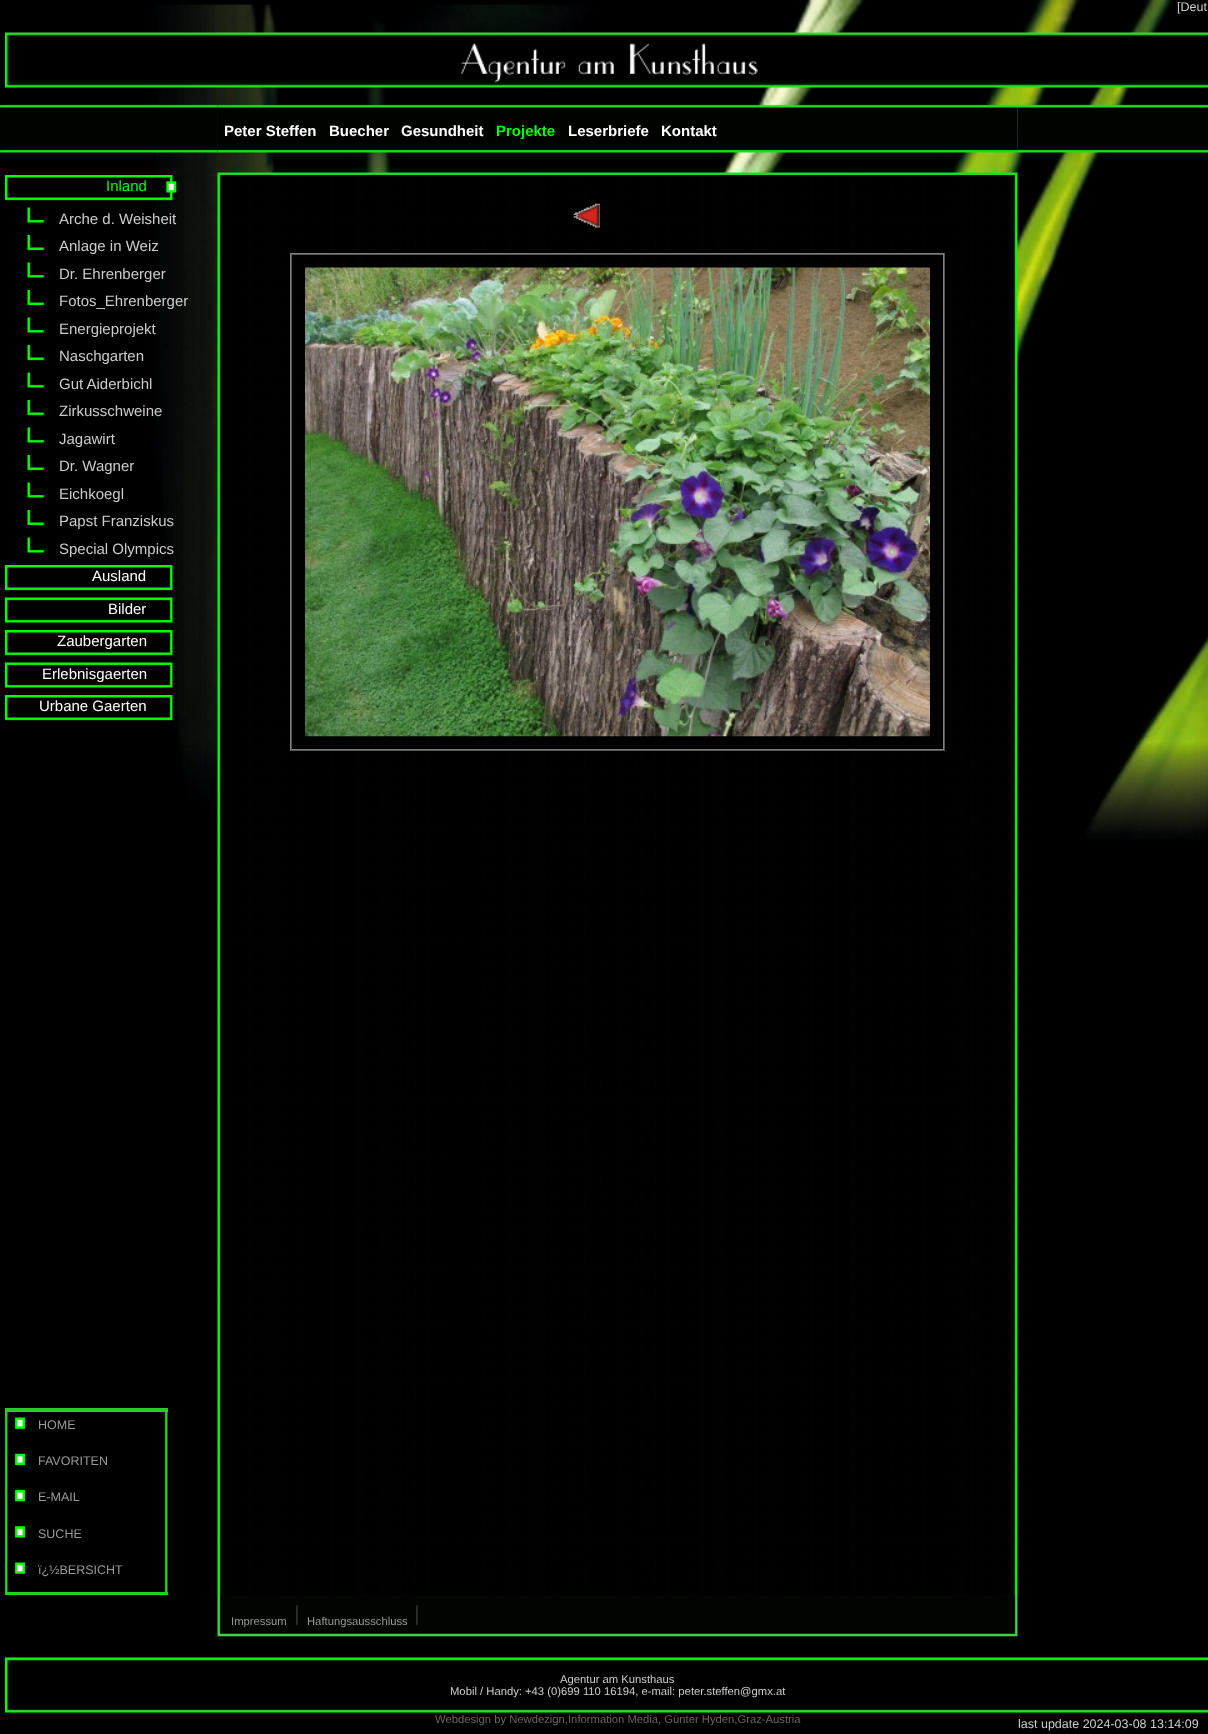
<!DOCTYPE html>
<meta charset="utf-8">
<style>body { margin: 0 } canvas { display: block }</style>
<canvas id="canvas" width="1208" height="1734"></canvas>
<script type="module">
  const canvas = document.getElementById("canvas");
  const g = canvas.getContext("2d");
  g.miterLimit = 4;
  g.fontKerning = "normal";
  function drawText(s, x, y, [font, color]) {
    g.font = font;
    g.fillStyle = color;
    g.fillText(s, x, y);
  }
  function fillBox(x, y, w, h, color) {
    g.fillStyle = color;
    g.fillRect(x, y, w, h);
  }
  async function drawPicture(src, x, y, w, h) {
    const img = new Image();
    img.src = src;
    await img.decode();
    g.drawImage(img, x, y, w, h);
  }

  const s1 = ["12.5px Liberation Sans", "#CCCCCC"];
  const s2 = ["bold 15px Liberation Sans", "#FFFFFF"];
  const s3 = ["bold 15px Liberation Sans", "#00FF00"];
  const s4 = ["15px Liberation Sans", "#00FF00"];
  const s5 = ["15px Liberation Sans", "#CCCCCC"];
  const s6 = ["15px Liberation Sans", "#FFFFFF"];
  const s7 = ["12.5px Liberation Sans", "#999999"];
  const s8 = ["11.25px Liberation Sans", "#999999"];
  const s9 = ["11.25px Liberation Sans", "#CCCCCC"];
  const s10 = ["11.25px Liberation Sans", "#666666"];

  fillBox(0, 0, 1208, 1734, "#000000");
  await drawPicture("pic1.png", 156, 0, 1052, 840);
  await drawPicture("pic2.png", 0, 104, 5, 49);
  await drawPicture("pic3.png", 5, 32, 1203, 56);
  drawText("[Deut", 1177, 11, s1);
  await drawPicture("pic4.png", 5, 104, 213, 49);
  await drawPicture("pic5.png", 217, 104, 801, 71);
  drawText("Peter Steffen", 224, 136, s2);
  drawText("Buecher", 329, 136, s2);
  drawText("Gesundheit", 401, 136, s2);
  drawText("Projekte", 496, 136, s3);
  drawText("Leserbriefe", 568, 136, s2);
  drawText("Kontakt", 661, 136, s2);
  await drawPicture("pic6.png", 1017, 104, 191, 49);
  await drawPicture("pic7.png", 5, 175, 172, 26);
  drawText("Inland", 106, 191, s4);
  await drawPicture("pic8.png", 27, 207, 17, 16);
  drawText("Arche d. Weisheit", 59, 224, s5);
  await drawPicture("pic9.png", 27, 235, 17, 16);
  drawText("Anlage in Weiz", 59, 251, s5);
  await drawPicture("pic8.png", 27, 262, 17, 16);
  drawText("Dr. Ehrenberger", 59, 279, s5);
  await drawPicture("pic10.png", 27, 290, 17, 16);
  drawText("Fotos_Ehrenberger", 59, 306, s5);
  await drawPicture("pic8.png", 27, 317, 17, 16);
  drawText("Energieprojekt", 59, 334, s5);
  await drawPicture("pic9.png", 27, 345, 17, 16);
  drawText("Naschgarten", 59, 361, s5);
  await drawPicture("pic8.png", 27, 372, 17, 16);
  drawText("Gut Aiderbichl", 59, 389, s5);
  await drawPicture("pic9.png", 27, 400, 17, 16);
  drawText("Zirkusschweine", 59, 416, s5);
  await drawPicture("pic8.png", 27, 427, 17, 16);
  drawText("Jagawirt", 59, 444, s5);
  await drawPicture("pic9.png", 27, 455, 17, 16);
  drawText("Dr. Wagner", 59, 471, s5);
  await drawPicture("pic8.png", 27, 482, 17, 16);
  drawText("Eichkoegl", 59, 499, s5);
  await drawPicture("pic9.png", 27, 510, 17, 16);
  drawText("Papst Franziskus", 59, 526, s5);
  await drawPicture("pic8.png", 27, 537, 17, 16);
  drawText("Special Olympics", 59, 554, s5);
  await drawPicture("pic11.png", 5, 565, 168, 26);
  drawText("Ausland", 92, 581, s6);
  await drawPicture("pic12.png", 5, 597, 168, 26);
  drawText("Bilder", 108, 614, s6);
  await drawPicture("pic13.png", 5, 630, 168, 26);
  drawText("Zaubergarten", 57, 646, s6);
  await drawPicture("pic14.png", 5, 662, 168, 26);
  drawText("Erlebnisgaerten", 42, 679, s6);
  await drawPicture("pic15.png", 5, 695, 168, 26);
  drawText("Urbane Gaerten", 39, 711, s6);
  await drawPicture("pic16.png", 5, 1412, 163, 183);
  fillBox(5, 1408, 163, 4, "#26CD28");
  await drawPicture("pic17.png", 14, 1417, 12, 12);
  drawText("HOME", 38, 1429, s7);
  await drawPicture("pic18.png", 14, 1453, 12, 12);
  drawText("FAVORITEN", 38, 1465, s7);
  await drawPicture("pic19.png", 14, 1490, 12, 12);
  drawText("E-MAIL", 38, 1501, s7);
  await drawPicture("pic20.png", 14, 1526, 12, 12);
  drawText("SUCHE", 38, 1538, s7);
  await drawPicture("pic17.png", 14, 1562, 12, 12);
  drawText("ï¿½BERSICHT", 38, 1574, s7);
  fillBox(7, 1592, 161, 3, "#26CD28");
  await drawPicture("pic21.png", 217, 175, 801, 1420);
  await drawPicture("pic22.png", 573, 203, 27, 25);
  fillBox(290, 253, 655, 1, "#808080");
  fillBox(944, 253, 1, 498, "#555555");
  fillBox(290, 750, 655, 1, "#555555");
  fillBox(290, 253, 1, 498, "#808080");
  fillBox(291, 254, 653, 1, "#555555");
  fillBox(943, 254, 1, 496, "#808080");
  fillBox(291, 749, 653, 1, "#808080");
  fillBox(291, 254, 1, 496, "#555555");
  await drawPicture("pic23.png", 305, 267, 625, 470);
  await drawPicture("pic24.png", 217, 1595, 801, 42);
  drawText("Impressum", 231, 1625, s8);
  await drawPicture("pic25.png", 296, 1605, 2, 21);
  drawText("Haftungsausschluss", 307, 1625, s8);
  await drawPicture("pic25.png", 416, 1605, 2, 21);
  await drawPicture("pic26.png", 5, 1657, 1203, 56);
  drawText("Agentur am Kunsthaus", 560, 1683, s9);
  drawText("Mobil / Handy: +43 (0)699 110 16194, e-mail: peter.steffen@gmx.at", 450, 1695, s9);
  drawText("Webdesign by Newdezign,Information Media, Günter Hyden,Graz-Austria", 435, 1723, s10);
  drawText("last update 2024-03-08 13:14:09", 1018, 1728, s1);
</script>
